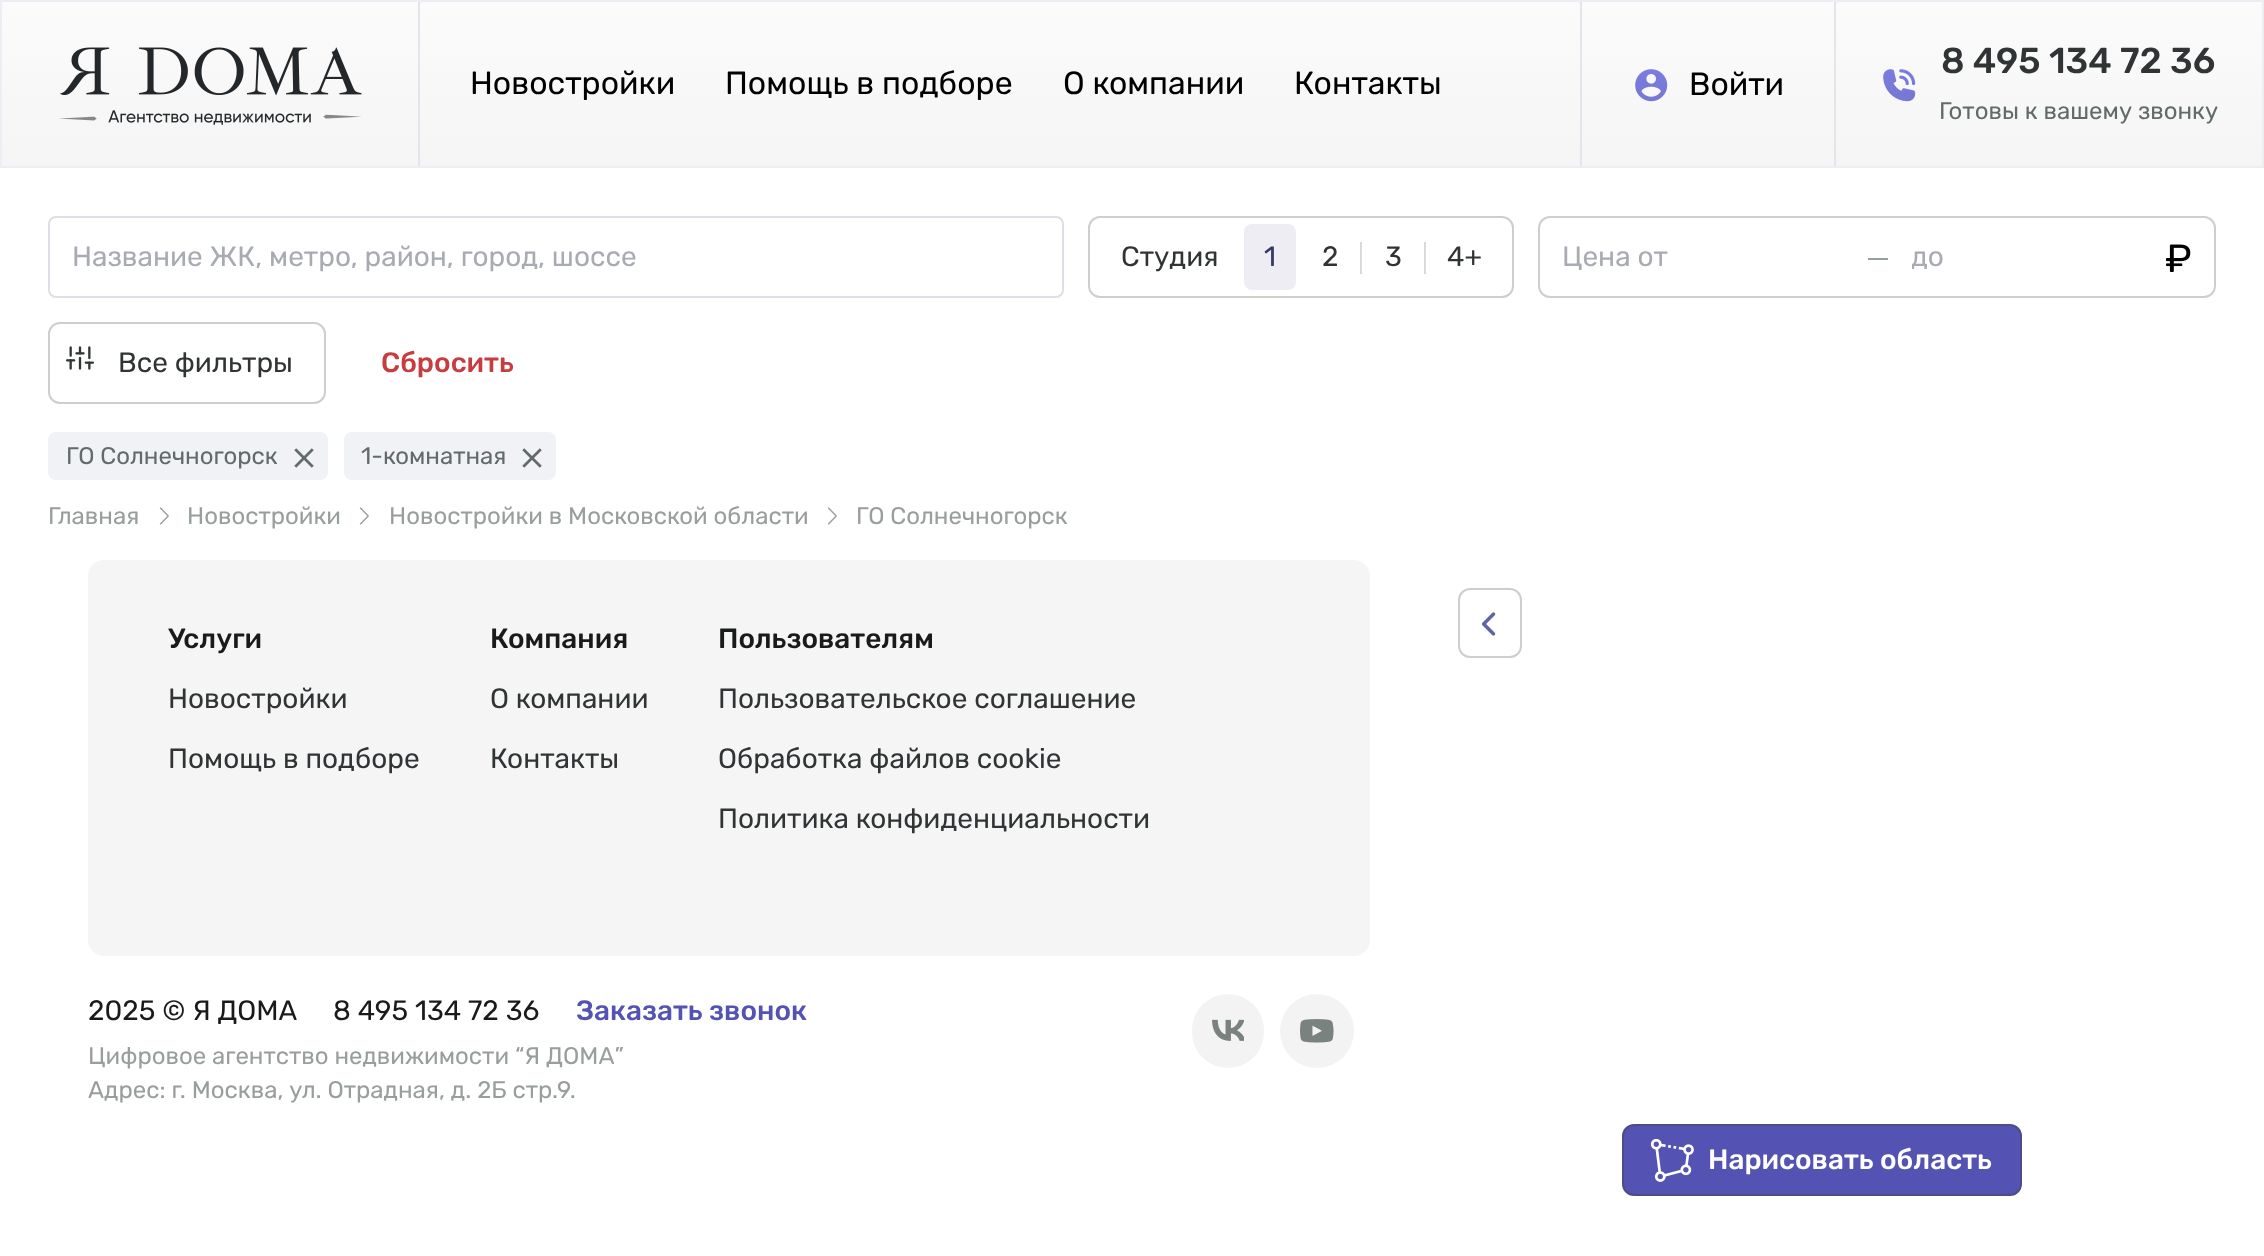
<!DOCTYPE html>
<meta charset="utf-8">
<style>body { margin: 0 } canvas { display: block }</style>
<canvas id="canvas" width="2264" height="1256"></canvas>
<script type="module">
  const canvas = document.getElementById("canvas");
  const g = canvas.getContext("2d");
  g.miterLimit = 4;
  g.fontKerning = "normal";
  function drawText(s, x, y, [font, color]) {
    g.font = font;
    g.fillStyle = color;
    g.fillText(s, x, y);
  }
  function fillBox(x, y, w, h, color) {
    g.fillStyle = color;
    g.fillRect(x, y, w, h);
  }
  function fillRounded(x, y, w, h, r, color) {
    g.fillStyle = color;
    g.beginPath();
    g.roundRect(x, y, w, h, r);
    g.fill();
  }
  async function drawPicture(src, x, y, w, h) {
    const img = new Image();
    img.src = src;
    await img.decode();
    g.drawImage(img, x, y, w, h);
  }
  let gradient;

  const s1 = ["32px Rubik", "#000000"];
  const s2 = ["500 36px Rubik", "#313435"];
  const s3 = ["24px Rubik", "#636B6A"];
  const s4 = ["28px Rubik", "#A8ABB2"];
  const s5 = ["28px Rubik", "#313435"];
  const s6 = ["28px Rubik", "#353967"];
  const s7 = ["500 28px Rubik", "#C73C3F"];
  const s8 = ["24px Rubik", "#989E9B"];
  const s9 = ["500 28px Rubik", "#191A1B"];
  const s10 = ["28px Rubik", "#191A1B"];
  const s11 = ["500 28px Rubik", "#5453B3"];
  const s12 = ["500 28px Rubik", "#FFFFFF"];

  fillBox(0, 0, 2264, 1256, "#FFFFFF");
  gradient = g.createLinearGradient(1132, 2, 1132, 166);
  gradient.addColorStop(0, "#FBFBFB");
  gradient.addColorStop(1, "#F5F5F6");
  g.fillStyle = gradient;
  g.fillRect(2, 2, 2260, 164);
  g.strokeStyle = "#EEEDF4";
  g.lineWidth = 2;
  g.strokeRect(1, 1, 2262, 166);
  fillBox(418, 2, 2, 164, "#E4E4EA");
  await drawPicture("pic1.png", 59, 47, 303, 78);
  drawText("Новостройки", 470, 94, s1);
  drawText("Помощь в подборе", 725, 94, s1);
  drawText("О компании", 1063, 94, s1);
  drawText("Контакты", 1294, 94, s1);
  fillBox(1834, 2, 2, 164, "#E4E4EA");
  fillBox(1580, 2, 2, 164, "#E4E4EA");
  await drawPicture("pic2.png", 1635, 69, 33, 33);
  drawText("Войти", 1689, 95, s1);
  await drawPicture("pic3.png", 1883, 69, 33, 33);
  drawText("8 495 134 72 36", 1941, 73, s2);
  drawText("Готовы к вашему звонку", 1939, 119, s3);
  g.beginPath();
  g.roundRect(49, 217, 1014, 80, 7);
  g.strokeStyle = "#DCDFE6";
  g.stroke();
  drawText("Название ЖК, метро, район, город, шоссе", 72, 266, s4);
  g.beginPath();
  g.roundRect(1089, 217, 424, 80, 11);
  g.strokeStyle = "#CDCFCC";
  g.stroke();
  drawText("Студия", 1121, 266, s5);
  fillRounded(1244, 224, 52, 66, 8, "#EEEDF4");
  drawText("1", 1264, 266, s6);
  drawText("2", 1322, 266, s5);
  fillBox(1360, 242, 2, 32, "#D9D9D9");
  drawText("3", 1385, 266, s5);
  fillBox(1424, 242, 2, 32, "#D9D9D9");
  drawText("4+", 1447, 266, s5);
  g.beginPath();
  g.roundRect(1539, 217, 676, 80, 11);
  g.stroke();
  drawText("Цена от", 1562, 266, s4);
  fillBox(1868, 258, 20, 2, "#989E9B");
  g.save();
  g.beginPath();
  g.rect(1912, 240, 236, 34);
  g.clip();
  drawText("до", 1911, 266, s4);
  g.restore();
  await drawPicture("pic4.png", 2166, 244, 25, 28);
  g.beginPath();
  g.roundRect(49, 323, 276, 80, 11);
  g.stroke();
  await drawPicture("pic5.png", 66, 346, 28, 24);
  drawText("Все фильтры", 118, 372, s5);
  drawText("Сбросить", 381, 372, s7);
  fillRounded(48, 432, 280, 48, 8, "#F0F2F5");
  drawText("ГО Солнечногорск", 66, 464, s3);
  await drawPicture("pic6.png", 294, 448, 20, 20);
  fillRounded(344, 432, 212, 48, 8, "#F0F2F5");
  drawText("1-комнатная", 361, 464, s3);
  await drawPicture("pic6.png", 522, 448, 20, 20);
  drawText("Главная", 48, 524, s8);
  await drawPicture("pic7.png", 159, 507, 10, 18);
  drawText("Новостройки", 187, 524, s8);
  await drawPicture("pic7.png", 359, 507, 10, 18);
  drawText("Новостройки в Московской области", 389, 524, s8);
  await drawPicture("pic7.png", 827, 507, 10, 18);
  drawText("ГО Солнечногорск", 856, 524, s8);
  fillRounded(88, 560, 1282, 396, 16, "#F5F5F6");
  drawText("Услуги", 168, 648, s9);
  drawText("Новостройки", 168, 708, s5);
  drawText("Помощь в подборе", 168, 768, s5);
  drawText("Компания", 490, 648, s9);
  drawText("О компании", 490, 708, s5);
  drawText("Контакты", 490, 768, s5);
  drawText("Пользователям", 718, 648, s9);
  drawText("Пользовательское соглашение", 718, 708, s5);
  drawText("Обработка файлов cookie", 718, 768, s5);
  drawText("Политика конфиденциальности", 718, 828, s5);
  drawText("2025 © Я ДОМА", 88, 1020, s10);
  drawText("8 495 134 72 36", 333, 1020, s10);
  drawText("Заказать звонок", 576, 1020, s11);
  drawText("Цифровое агентство недвижимости “Я ДОМА”", 88, 1064, s8);
  drawText("Адрес: г. Москва, ул. Отрадная, д. 2Б стр.9.", 88, 1098, s8);
  fillRounded(1192, 994, 72, 74, 36, "#F3F3F3");
  await drawPicture("pic8.png", 1212, 1019, 32, 22);
  g.beginPath();
  g.arc(1317, 1031, 37, 0, Math.PI * 2);
  g.fill();
  await drawPicture("pic9.png", 1300, 1019, 34, 24);
  g.beginPath();
  g.roundRect(1459, 589, 62, 68, 11);
  g.stroke();
  await drawPicture("pic10.png", 1481, 612, 15, 24);
  g.fillStyle = "#5453B3";
  g.beginPath();
  g.roundRect(1623, 1125, 398, 70, 11);
  g.fill();
  g.strokeStyle = "#4B4D86";
  g.stroke();
  await drawPicture("pic11.png", 1651, 1139, 43, 43);
  drawText("Нарисовать область", 1708, 1169, s12);
</script>
